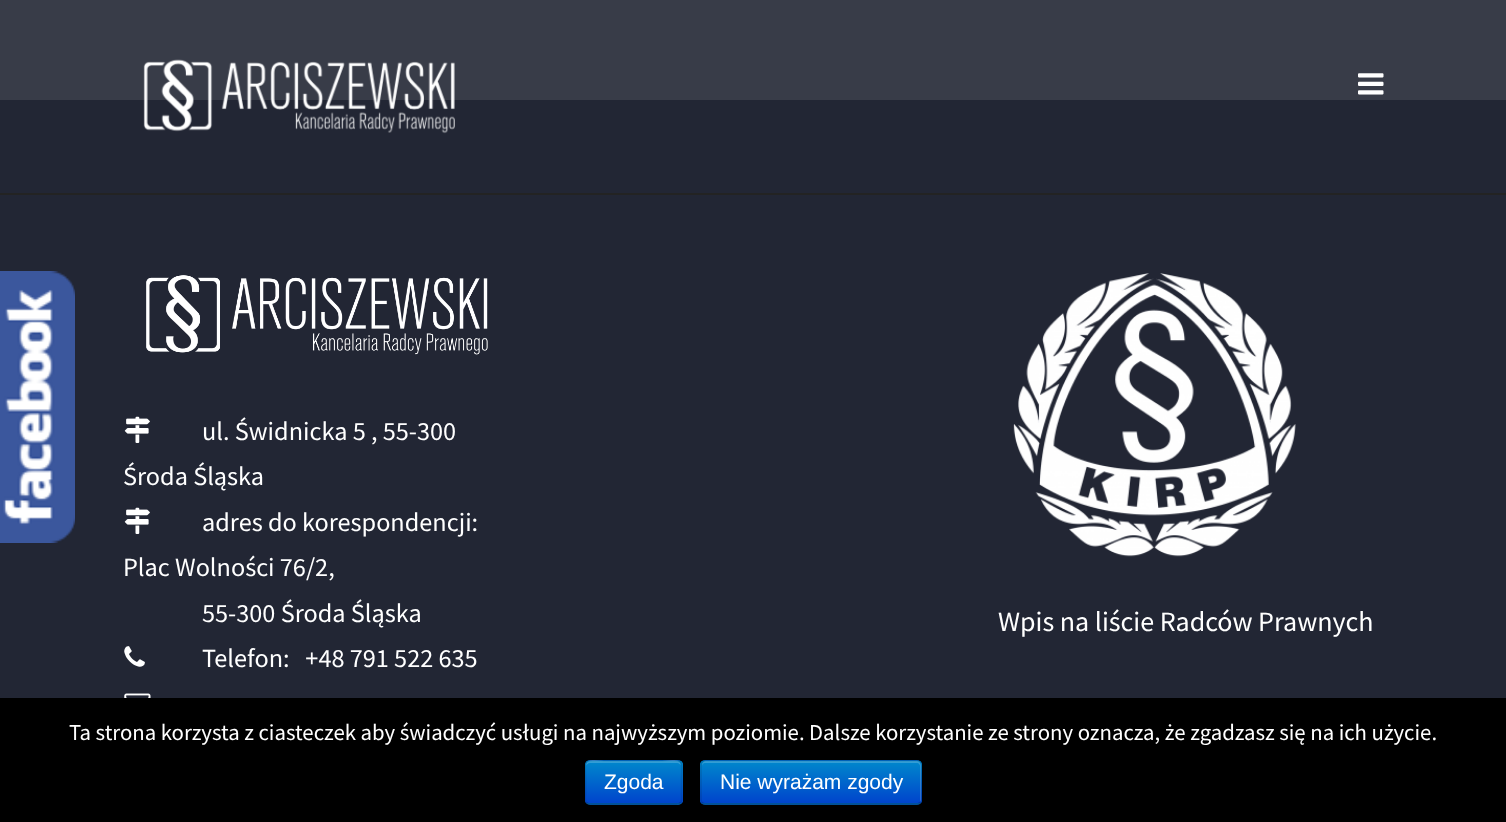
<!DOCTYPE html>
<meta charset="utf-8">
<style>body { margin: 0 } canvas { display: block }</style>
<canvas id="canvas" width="1506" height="822"></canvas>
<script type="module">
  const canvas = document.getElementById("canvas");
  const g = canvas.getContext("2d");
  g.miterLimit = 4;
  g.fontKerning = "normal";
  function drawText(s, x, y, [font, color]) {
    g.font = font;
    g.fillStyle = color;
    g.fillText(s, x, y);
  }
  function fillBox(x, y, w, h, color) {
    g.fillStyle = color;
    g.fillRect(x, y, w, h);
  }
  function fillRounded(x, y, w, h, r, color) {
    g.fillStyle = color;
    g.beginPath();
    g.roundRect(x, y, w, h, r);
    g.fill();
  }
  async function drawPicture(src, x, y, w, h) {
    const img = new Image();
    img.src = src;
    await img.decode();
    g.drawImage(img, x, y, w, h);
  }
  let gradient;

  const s1 = ["26.25px Source Sans Pro", "#FFFFFF"];
  const s2 = ["28px Source Sans Pro", "#FFFFFF"];
  const s3 = ["22.75px Source Sans Pro", "#FFFFFF"];
  const s4 = ["21px Liberation Sans", "#FFFFFF"];

  fillBox(0, 0, 1506, 822, "#383C48");
  fillBox(0, 195, 1506, 503, "#222634");
  await drawPicture("pic1.png", 0, 271, 75, 272);
  fillBox(0, 193, 1506, 2, "#232323");
  fillBox(0, 100, 1506, 93, "#222634");
  await drawPicture("pic2.png", 143, 59, 312, 75);
  await drawPicture("pic3.png", 1358, 73, 26, 22);
  await drawPicture("pic4.png", 146, 275, 342, 80);
  await drawPicture("pic5.png", 124, 416, 26, 27);
  drawText("ul. Świdnicka 5 , 55-300", 202, 440, s1);
  drawText("Środa Śląska", 123, 485, s1);
  await drawPicture("pic5.png", 124, 507, 26, 27);
  drawText("adres do korespondencji:", 202, 531, s1);
  drawText("Plac Wolności 76/2,", 123, 576, s1);
  drawText("55-300 Środa Śląska", 202, 622, s1);
  await drawPicture("pic6.png", 124, 646, 21, 21);
  drawText("Telefon:   +48 791 522 635", 202, 667, s1);
  await drawPicture("pic7.png", 124, 693, 27, 5);
  await drawPicture("pic8.png", 1013, 273, 283, 284);
  drawText("Wpis na liście Radców Prawnych", 998, 631, s2);
  fillBox(0, 698, 1506, 124, "#000000");
  drawText("Ta strona korzysta z ciasteczek aby świadczyć usługi na najwyższym poziomie. Dalsze korzystanie ze strony oznacza, że zgadzasz się na ich użycie.", 69, 740, s3);
  fillRounded(585, 760, 98, 45, 5, "#006DCC");
  g.save();
  g.beginPath();
  g.roundRect(585, 760, 98, 45, 5);
  g.clip();
  gradient = g.createLinearGradient(634, 761, 634, 803);
  gradient.addColorStop(0, "#0088CC");
  gradient.addColorStop(1, "#0044CC");
  g.fillStyle = gradient;
  g.fillRect(585, 761, 98, 42);
  g.restore();
  g.fillStyle = "rgba(255, 255, 255, 0.2)";
  g.beginPath();
  g.moveTo(590, 763);
  g.lineTo(677, 763);
  g.bezierCurveTo(679, 763, 681, 765, 681, 766);
  g.bezierCurveTo(681, 757, 667, 761, 662, 761);
  g.lineTo(604, 761);
  g.bezierCurveTo(600, 761, 586, 757, 586, 766);
  g.bezierCurveTo(586, 765, 588, 763, 590, 763);
  g.closePath();
  g.fill();
  g.beginPath();
  g.moveTo(680.5, 803);
  g.bezierCurveTo(679.5, 803.5, 678.5, 804, 677, 804);
  g.lineTo(590, 804);
  g.bezierCurveTo(588.5, 804, 587.5, 803.5, 586.5, 803);
  g.strokeStyle = "rgba(0, 0, 0, 0.25)";
  g.lineWidth = 1.8;
  g.stroke();
  g.beginPath();
  g.moveTo(586.5, 803);
  g.bezierCurveTo(584.5, 800.5, 585.5, 796.5, 585.5, 794);
  g.lineTo(585.5, 782);
  g.bezierCurveTo(585.5, 758, 581, 760.5, 604.5, 760.5);
  g.lineTo(662.5, 760.5);
  g.bezierCurveTo(686, 760.5, 681.5, 758, 681.5, 782);
  g.lineTo(681.5, 794);
  g.bezierCurveTo(681.5, 796.5, 682.5, 800.5, 680.5, 803);
  g.strokeStyle = "rgba(0, 0, 0, 0.1)";
  g.stroke();
  drawText("Zgoda", 604, 789, s4);
  fillRounded(700, 760, 222, 45, 5, "#006DCC");
  g.save();
  g.beginPath();
  g.roundRect(700, 760, 222, 45, 5);
  g.clip();
  gradient = g.createLinearGradient(811, 761, 811, 803);
  gradient.addColorStop(0, "#0088CC");
  gradient.addColorStop(1, "#0044CC");
  g.fillStyle = gradient;
  g.fillRect(700, 761, 222, 42);
  g.restore();
  g.fillStyle = "rgba(255, 255, 255, 0.2)";
  g.beginPath();
  g.moveTo(705, 763);
  g.lineTo(917, 763);
  g.bezierCurveTo(919, 763, 920, 765, 920, 766);
  g.lineTo(920, 802);
  g.bezierCurveTo(921, 801, 921, 800, 921, 799);
  g.lineTo(921, 765);
  g.bezierCurveTo(921, 763, 919, 761, 917, 761);
  g.lineTo(706, 761);
  g.bezierCurveTo(704, 761, 702, 763, 702, 765);
  g.lineTo(702, 766);
  g.bezierCurveTo(702, 765, 703, 763, 705, 763);
  g.closePath();
  g.fill();
  g.beginPath();
  g.moveTo(920, 803);
  g.lineTo(917, 804);
  g.lineTo(705, 804);
  g.lineTo(702, 803);
  g.strokeStyle = "rgba(0, 0, 0, 0.25)";
  g.stroke();
  g.beginPath();
  g.moveTo(702, 803);
  g.bezierCurveTo(701.5, 802, 701, 801, 701, 800);
  g.lineTo(701, 765);
  g.bezierCurveTo(701, 763.5, 701.5, 762.5, 702, 761.5);
  g.bezierCurveTo(703, 761, 704, 760.5, 705, 760.5);
  g.lineTo(917, 760.5);
  g.bezierCurveTo(918, 760.5, 919.5, 761, 920, 761.5);
  g.bezierCurveTo(921, 762.5, 921.5, 763.5, 921.5, 765);
  g.lineTo(921.5, 800);
  g.bezierCurveTo(921.5, 801, 921, 802, 920, 803);
  g.strokeStyle = "rgba(0, 0, 0, 0.1)";
  g.stroke();
  drawText("Nie wyrażam zgody", 720, 789, s4);
</script>
